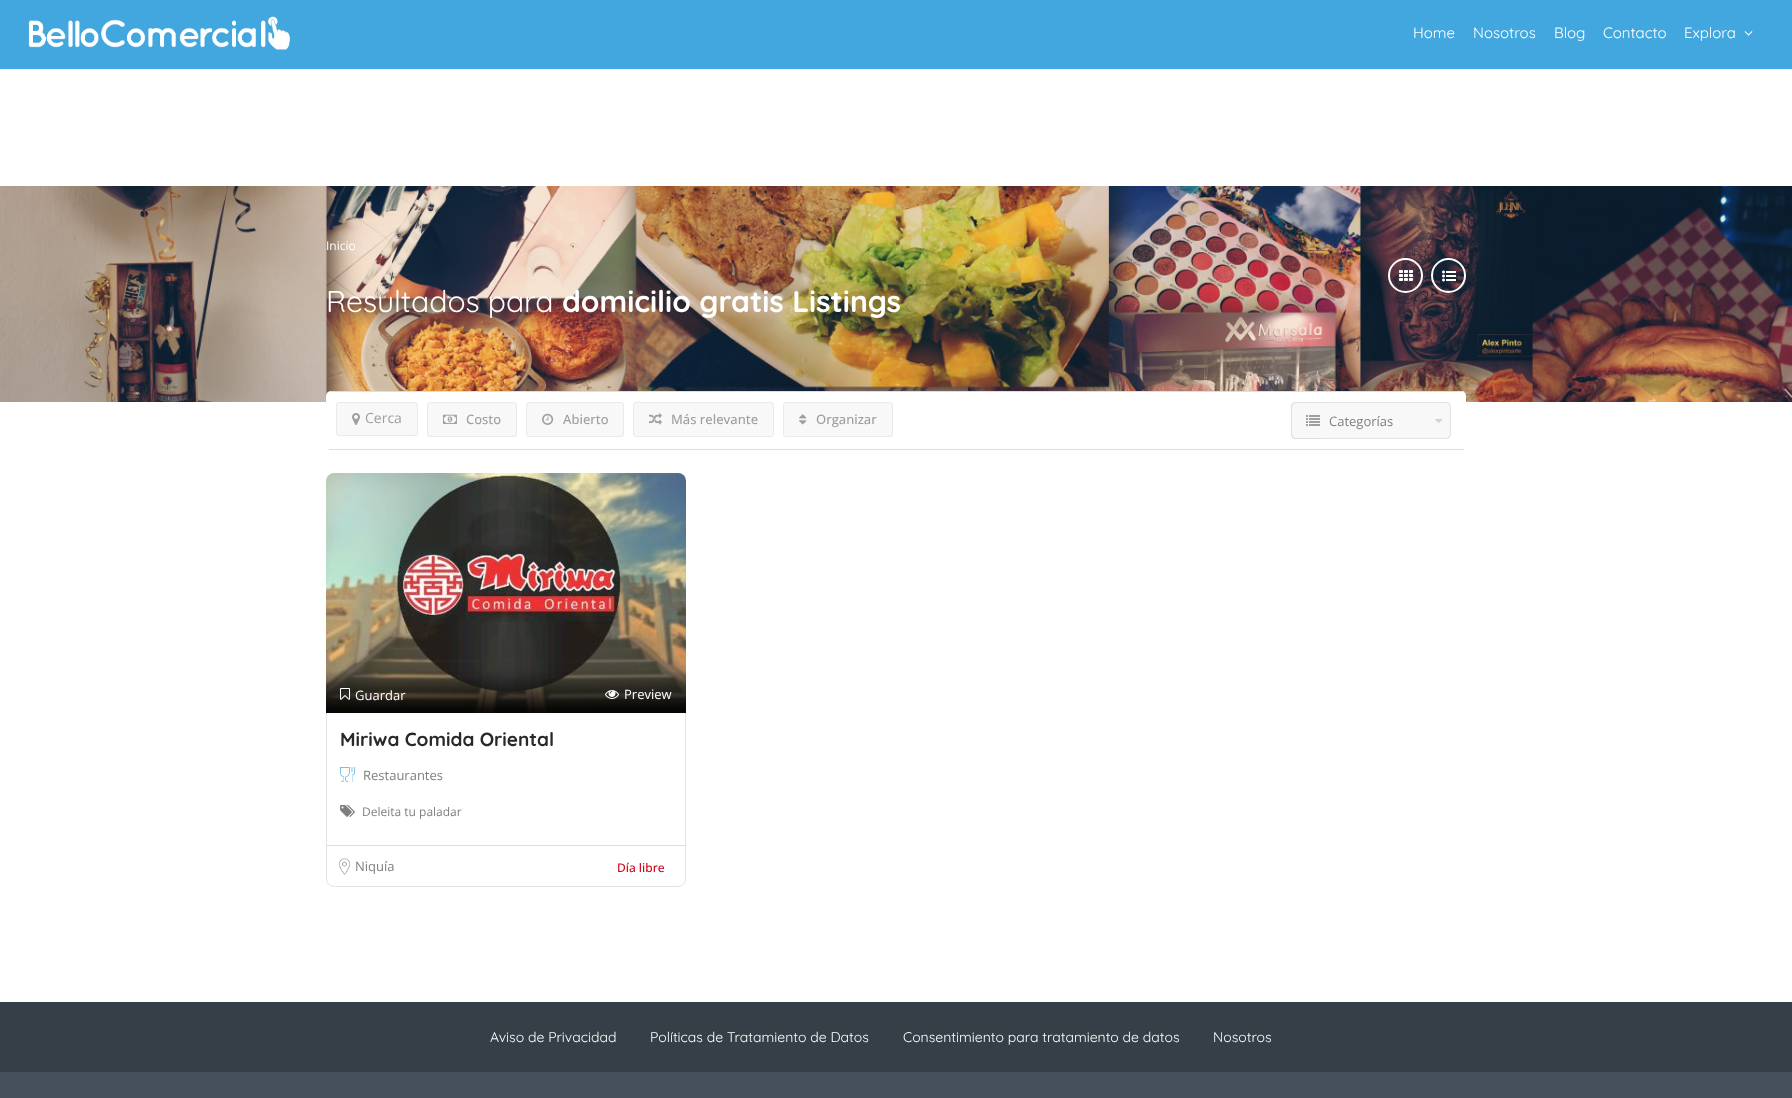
<!DOCTYPE html>
<meta charset="utf-8">
<style>body { margin: 0 } canvas { display: block }</style>
<canvas id="canvas" width="1792" height="1098"></canvas>
<script type="module">
  const canvas = document.getElementById("canvas");
  const g = canvas.getContext("2d");
  g.miterLimit = 4;
  g.fontKerning = "normal";
  function drawText(s, x, y, [font, color]) {
    g.font = font;
    g.fillStyle = color;
    g.fillText(s, x, y);
  }
  function fillBox(x, y, w, h, color) {
    g.fillStyle = color;
    g.fillRect(x, y, w, h);
  }
  function fillRounded(x, y, w, h, r, color) {
    g.fillStyle = color;
    g.beginPath();
    g.roundRect(x, y, w, h, r);
    g.fill();
  }
  async function drawPicture(src, x, y, w, h) {
    const img = new Image();
    img.src = src;
    await img.decode();
    g.drawImage(img, x, y, w, h);
  }

  const s1 = ["15px Quicksand", "#FFFFFF"];
  const s2 = ["12px Open Sans", "#FFFFFF"];
  const s3 = ["30px Quicksand", "#FFFFFF"];
  const s4 = ["bold 30px Quicksand", "#FFFFFF"];
  const s5 = ["14px Open Sans", "#9F9F9F"];
  const s6 = ["500 13px Open Sans", "#9F9F9F"];
  const s7 = ["13px Open Sans", "#7F7F7F"];
  const s8 = ["13px Open Sans", "#FFFFFF"];
  const s9 = ["bold 19px Quicksand", "#292929"];
  const s10 = ["12px Open Sans", "#7F7F7F"];
  const s11 = ["500 12px Open Sans", "#D0021B"];
  const s12 = ["14px Quicksand", "#FFFFFF"];

  fillBox(0, 0, 1792, 1098, "#FFFFFF");
  fillBox(0, 0, 1792, 69, "#42A7DF");
  await drawPicture("pic1.png", 28, 16, 262, 34);
  drawText("Home", 1413, 38, s1);
  drawText("Nosotros", 1473, 38, s1);
  drawText("Blog", 1554, 38, s1);
  drawText("Contacto", 1603, 38, s1);
  drawText("Explora", 1684, 38, s1);
  await drawPicture("pic2.png", 1744, 31, 9, 5);
  await drawPicture("pic3.png", 0, 186, 1792, 216);
  drawText("Inicio", 326, 250, s2);
  g.beginPath();
  g.arc(1405.5, 275.5, 16.5, 0, Math.PI * 2);
  g.strokeStyle = "#FFFFFF";
  g.lineWidth = 2;
  g.stroke();
  await drawPicture("pic4.png", 1399, 270, 14, 11);
  g.beginPath();
  g.arc(1448.5, 275.5, 16.5, 0, Math.PI * 2);
  g.stroke();
  await drawPicture("pic5.png", 1442, 270, 14, 12);
  drawText("Resultados para", 326, 312, s3);
  drawText("domicilio gratis Listings", 562, 312, s4);
  fillRounded(326, 391, 1140, 59, 5, "#FFFFFF");
  fillBox(329, 391, 1135, 1, "#DEDEDE");
  fillBox(329, 449, 1135, 1, "#DEDEDE");
  g.fillStyle = "#F8F8F8";
  g.beginPath();
  g.roundRect(336.5, 402.5, 81, 33, 2.5);
  g.fill();
  g.strokeStyle = "#EAEAEA";
  g.lineWidth = 1;
  g.stroke();
  await drawPicture("pic6.png", 352, 413, 8, 12);
  drawText("Cerca", 365, 423, s5);
  g.fillStyle = "#F8F8F8";
  g.beginPath();
  g.roundRect(427.5, 402.5, 89, 34, 2.5);
  g.fill();
  g.stroke();
  await drawPicture("pic7.png", 443, 414, 14, 10);
  drawText("Costo", 466, 424, s6);
  g.fillStyle = "#F8F8F8";
  g.beginPath();
  g.roundRect(526.5, 402.5, 97, 34, 2.5);
  g.fill();
  g.stroke();
  await drawPicture("pic8.png", 542, 413, 12, 12);
  drawText("Abierto", 563, 424, s6);
  g.fillStyle = "#F8F8F8";
  g.beginPath();
  g.roundRect(633.5, 402.5, 140, 34, 2.5);
  g.fill();
  g.stroke();
  await drawPicture("pic9.png", 649, 413, 13, 12);
  drawText("Más relevante", 671, 424, s6);
  g.fillStyle = "#F8F8F8";
  g.beginPath();
  g.roundRect(783.5, 402.5, 109, 34, 2.5);
  g.fill();
  g.stroke();
  await drawPicture("pic10.png", 799, 414, 8, 11);
  drawText("Organizar", 816, 424, s6);
  g.fillStyle = "#F8F8F8";
  g.beginPath();
  g.roundRect(1291, 402, 30, 37, [5, 0, 0, 5]);
  g.fill();
  g.fillStyle = "#DEDEDE";
  g.beginPath();
  g.moveTo(1296, 402);
  g.lineTo(1321, 402);
  g.lineTo(1321, 439);
  g.lineTo(1296, 439);
  g.bezierCurveTo(1293, 439, 1291, 437, 1291, 434);
  g.lineTo(1291, 407);
  g.bezierCurveTo(1291, 404, 1293, 402, 1296, 402);
  g.closePath();
  g.moveTo(1296, 403);
  g.lineTo(1321, 403);
  g.lineTo(1321, 438);
  g.lineTo(1296, 438);
  g.bezierCurveTo(1294, 438, 1292, 436, 1292, 434);
  g.lineTo(1292, 407);
  g.bezierCurveTo(1292, 405, 1294, 403, 1296, 403);
  g.closePath();
  g.fill("evenodd");
  await drawPicture("pic11.png", 1306, 415, 14, 11);
  g.fillStyle = "#F8F8F8";
  g.beginPath();
  g.roundRect(1321, 402, 130, 37, [0, 5, 5, 0]);
  g.fill();
  g.fillStyle = "#E3E3E3";
  g.beginPath();
  g.moveTo(1321, 402);
  g.lineTo(1446, 402);
  g.bezierCurveTo(1449, 402, 1451, 404, 1451, 407);
  g.lineTo(1451, 434);
  g.bezierCurveTo(1451, 437, 1449, 439, 1446, 439);
  g.lineTo(1321, 439);
  g.closePath();
  g.moveTo(1321, 403);
  g.lineTo(1446, 403);
  g.bezierCurveTo(1448, 403, 1450, 405, 1450, 407);
  g.lineTo(1450, 434);
  g.bezierCurveTo(1450, 436, 1448, 438, 1446, 438);
  g.lineTo(1321, 438);
  g.closePath();
  g.fill("evenodd");
  drawText("Categorías", 1329, 426, s7);
  await drawPicture("pic12.png", 1435, 419, 7, 4);
  g.beginPath();
  g.roundRect(326.5, 473.5, 359, 413, 7.5);
  g.strokeStyle = "#E3E3E3";
  g.stroke();
  await drawPicture("pic13.png", 326, 473, 360, 240);
  await drawPicture("pic14.png", 340, 688, 10, 12);
  drawText("Guardar", 355, 700, s8);
  await drawPicture("pic15.png", 605, 690, 14, 9);
  drawText("Preview", 624, 699, s8);
  drawText("Miriwa Comida Oriental", 340, 746, s9);
  await drawPicture("pic16.png", 340, 767, 15, 15);
  drawText("Restaurantes", 363, 780, s7);
  await drawPicture("pic17.png", 340, 805, 15, 12);
  drawText("Deleita tu paladar", 362, 816, s10);
  fillBox(327, 845, 358, 1, "#DEDEDE");
  await drawPicture("pic18.png", 338, 858, 13, 17);
  drawText("Niquía", 355, 871, s7);
  drawText("Día libre", 617, 872, s11);
  fillBox(0, 1002, 1792, 70, "#363F48");
  drawText("Aviso de Privacidad", 490, 1042, s12);
  drawText("Políticas de Tratamiento de Datos", 650, 1042, s12);
  drawText("Consentimiento para tratamiento de datos", 903, 1042, s12);
  drawText("Nosotros", 1213, 1042, s12);
  fillBox(0, 1072, 1792, 26, "#45505B");
</script>
